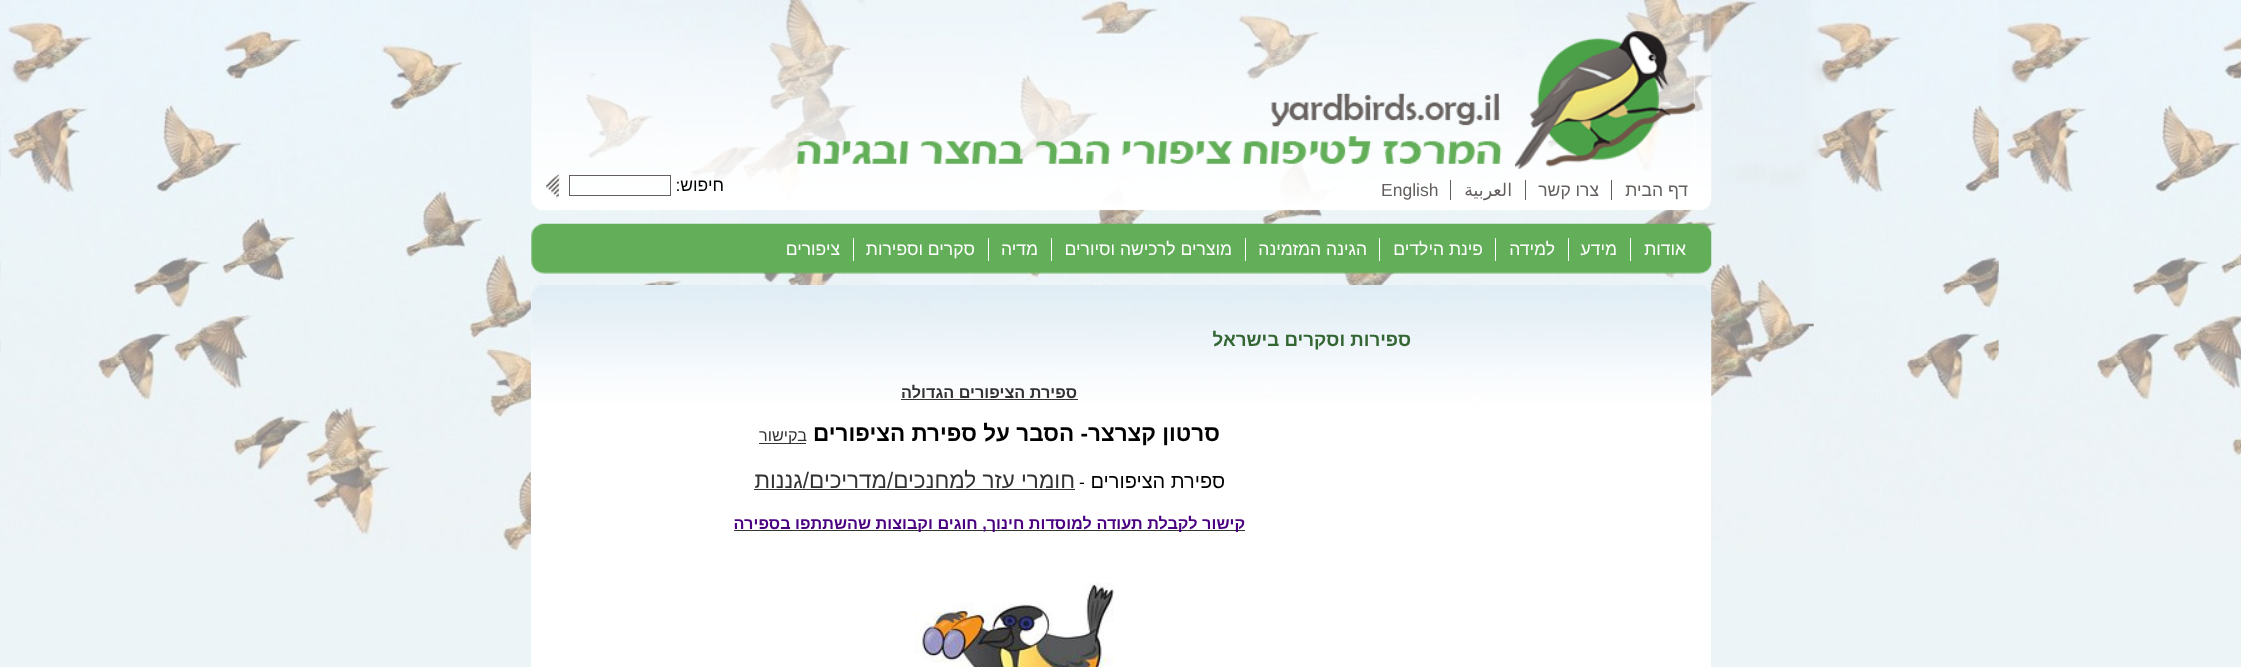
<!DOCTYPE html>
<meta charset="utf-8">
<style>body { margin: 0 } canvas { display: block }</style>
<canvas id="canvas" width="2241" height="667"></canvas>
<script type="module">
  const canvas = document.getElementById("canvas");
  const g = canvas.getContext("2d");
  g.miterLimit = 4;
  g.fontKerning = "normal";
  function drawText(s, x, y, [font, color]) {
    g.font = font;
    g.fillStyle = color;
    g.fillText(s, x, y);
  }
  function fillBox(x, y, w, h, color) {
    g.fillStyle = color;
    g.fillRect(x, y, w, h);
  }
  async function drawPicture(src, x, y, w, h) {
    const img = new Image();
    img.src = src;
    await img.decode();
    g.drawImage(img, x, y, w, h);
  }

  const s1 = ["17.5px Liberation Sans", "#645E5D"];
  const s2 = ["17.5px DejaVu Sans", "#645E5D"];
  const s3 = ["17.5px Liberation Sans", "#000000"];
  const s4 = ["17.5px Liberation Sans", "#FFFFFF"];
  const s5 = ["bold 18.75px Liberation Sans", "#336633"];
  const s6 = ["bold 16.25px Liberation Sans", "#333333"];
  const s7 = ["bold 22.5px Liberation Sans", "#000000"];
  const s8 = ["16.25px Liberation Sans", "#333333"];
  const s9 = ["20px Liberation Sans", "#000000"];
  const s10 = ["22.5px Liberation Sans", "#333333"];
  const s11 = ["bold 16.25px Liberation Sans", "#4B0082"];

  fillBox(0, 0, 2241, 667, "#EDF4F7");
  await drawPicture("pic1.png", 0, 0, 2241, 553);
  await drawPicture("pic2.png", 531, 0, 1181, 274);
  fillBox(1611, 180, 1, 20, "#645E5D");
  g.direction = "rtl";
  drawText("דף הבית", 1688, 196, s1);
  fillBox(1525, 180, 1, 20, "#645E5D");
  drawText("צרו קשר", 1599, 196, s1);
  fillBox(1450, 180, 1, 20, "#645E5D");
  drawText("العربية", 1512, 196, s2);
  g.direction = "ltr";
  drawText("English", 1381, 196, s1);
  g.direction = "rtl";
  drawText("חיפוש:", 724, 191, s3);
  g.strokeStyle = "#645E5D";
  g.strokeRect(569.5, 175.5, 101, 20);
  await drawPicture("pic3.png", 546, 173, 14, 25);
  fillBox(1630, 238, 1, 23, "#FFFFFF");
  drawText("אודות", 1686, 255, s4);
  fillBox(1568, 238, 1, 23, "#FFFFFF");
  drawText("מידע", 1617, 255, s4);
  fillBox(1495, 238, 1, 23, "#FFFFFF");
  drawText("למידה", 1555, 255, s4);
  fillBox(1379, 238, 1, 23, "#FFFFFF");
  drawText("פינת הילדים", 1483, 255, s4);
  fillBox(1245, 238, 1, 23, "#FFFFFF");
  drawText("הגינה המזמינה", 1367, 255, s4);
  fillBox(1051, 238, 1, 23, "#FFFFFF");
  drawText("מוצרים לרכישה וסיורים", 1232, 255, s4);
  fillBox(988, 238, 1, 23, "#FFFFFF");
  drawText("מדיה", 1038, 255, s4);
  fillBox(853, 238, 1, 23, "#FFFFFF");
  drawText("סקרים וספירות", 975, 255, s4);
  drawText("ציפורים", 840, 255, s4);
  fillBox(531, 285, 1180, 382, "#FFFFFF");
  await drawPicture("pic4.png", 531, 285, 1181, 132);
  drawText("ספירות וסקרים בישראל", 1411, 346, s5);
  drawText("ספירת הציפורים הגדולה", 1077, 398, s6);
  fillBox(901, 399, 177, 1, "#333333");
  drawText("סרטון קצרצר- הסבר על ספירת הציפורים", 1220, 441, s7);
  fillBox(759, 443, 47, 1, "#333333");
  drawText("בקישור", 807, 441, s8);
  drawText("ספירת הציפורים", 1225, 488, s9);
  g.direction = "ltr";
  drawText("-", 1079, 488, s3);
  g.direction = "rtl";
  drawText("חומרי עזר למחנכים/מדריכים/גננות", 1075, 488, s10);
  fillBox(754, 489, 321, 1, "#333333");
  fillBox(734, 530, 511, 1, "#333333");
  drawText("קישור לקבלת תעודה למוסדות חינוך, חוגים וקבוצות שהשתתפו בספירה", 1245, 529, s11);
  await drawPicture("pic5.png", 914, 582, 200, 85);
</script>
